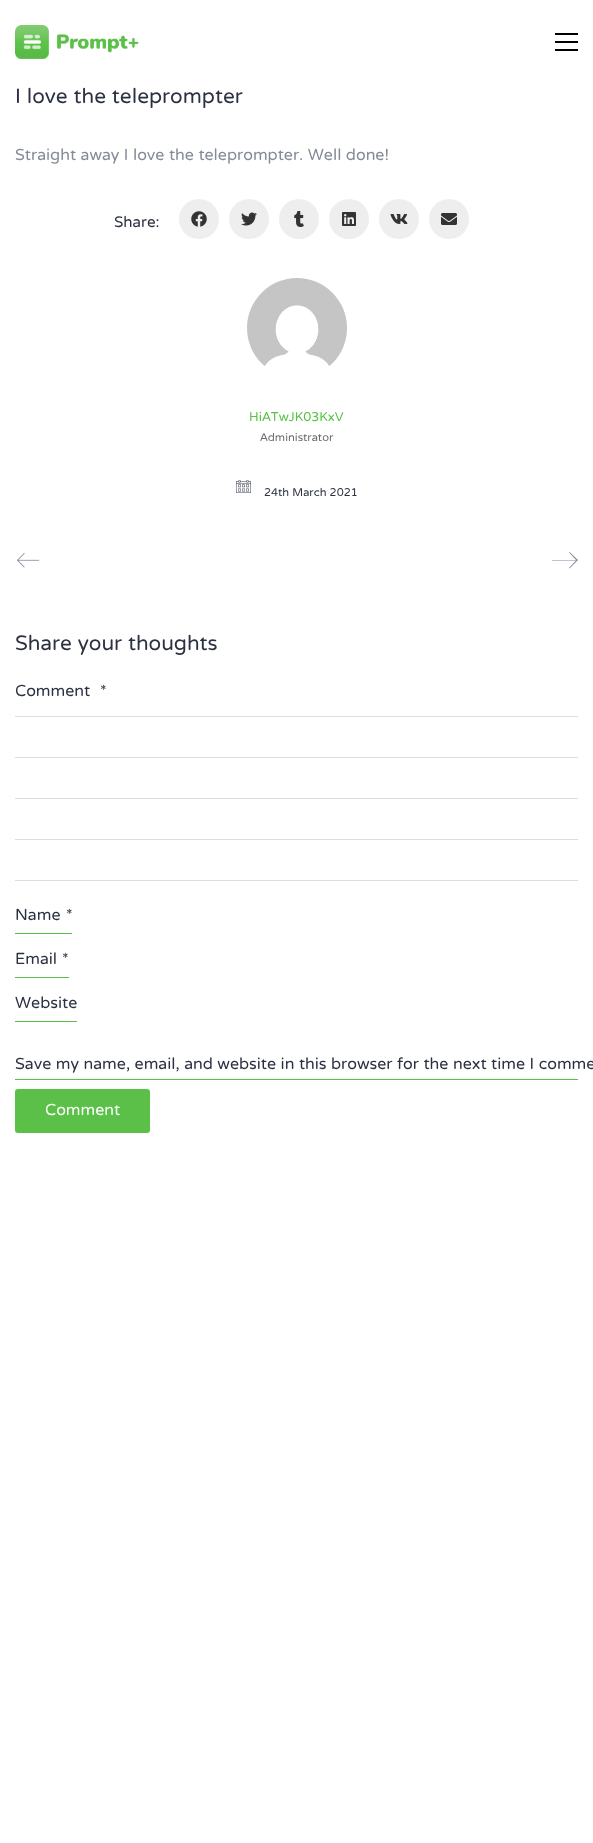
<!DOCTYPE html>
<meta charset="utf-8">
<style>body { margin: 0 } canvas { display: block }</style>
<canvas id="canvas" width="593" height="1843"></canvas>
<script type="module">
  const canvas = document.getElementById("canvas");
  const g = canvas.getContext("2d");
  g.miterLimit = 4;
  g.fontKerning = "normal";
  function drawText(s, x, y, [font, color]) {
    g.font = font;
    g.fillStyle = color;
    g.fillText(s, x, y);
  }
  function fillBox(x, y, w, h, color) {
    g.fillStyle = color;
    g.fillRect(x, y, w, h);
  }
  function fillRounded(x, y, w, h, r, color) {
    g.fillStyle = color;
    g.beginPath();
    g.roundRect(x, y, w, h, r);
    g.fill();
  }
  async function drawPicture(src, x, y, w, h) {
    const img = new Image();
    img.src = src;
    await img.decode();
    g.drawImage(img, x, y, w, h);
  }

  const s1 = ["26px NTR", "#2C3142"];
  const s2 = ["20px NTR", "#858A99"];
  const s3 = ["19px NTR", "#2C3142"];
  const s4 = ["16px NTR", "#5AC047"];
  const s5 = ["14px NTR", "#6D6D6D"];
  const s6 = ["14px NTR", "#2C3142"];
  const s7 = ["20px NTR", "#2C3142"];
  const s8 = ["20px NTR", "#FFFFFF"];

  fillBox(0, 0, 593, 1843, "#FFFFFF");
  await drawPicture("pic1.png", 15, 25, 124, 34);
  fillBox(555, 33, 23, 2, "#000000");
  fillBox(555, 41, 23, 2, "#000000");
  fillBox(555, 49, 23, 2, "#000000");
  drawText("I love the teleprompter", 15, 103, s1);
  drawText("Straight away I love the teleprompter. Well done!", 15, 160, s2);
  drawText("Share:", 114, 227, s3);
  g.fillStyle = "#EEEEEE";
  g.beginPath();
  g.arc(199, 219, 20, 0, Math.PI * 2);
  g.fill();
  await drawPicture("pic2.png", 191, 211, 16, 16);
  g.beginPath();
  g.arc(249, 219, 20, 0, Math.PI * 2);
  g.fill();
  await drawPicture("pic3.png", 241, 212, 16, 14);
  g.beginPath();
  g.arc(299, 219, 20, 0, Math.PI * 2);
  g.fill();
  await drawPicture("pic4.png", 294, 211, 10, 16);
  g.beginPath();
  g.arc(349, 219, 20, 0, Math.PI * 2);
  g.fill();
  await drawPicture("pic5.png", 342, 212, 14, 14);
  g.beginPath();
  g.arc(399, 219, 20, 0, Math.PI * 2);
  g.fill();
  await drawPicture("pic6.png", 390, 214, 18, 10);
  g.beginPath();
  g.arc(449, 219, 20, 0, Math.PI * 2);
  g.fill();
  await drawPicture("pic7.png", 441, 213, 16, 12);
  await drawPicture("pic8.png", 247, 278, 100, 88);
  drawText("HiATwJK03KxV", 249, 421, s4);
  drawText("Administrator", 260, 441, s5);
  await drawPicture("pic9.png", 236, 480, 15, 13);
  drawText("24th March 2021", 264, 496, s6);
  await drawPicture("pic10.png", 17, 553, 23, 15);
  g.fillStyle = "#858A99";
  g.beginPath();
  g.moveTo(569.5, 552);
  g.lineTo(569, 552.5);
  g.lineTo(576, 560);
  g.lineTo(552, 560);
  g.lineTo(552, 560.5);
  g.lineTo(576, 560.5);
  g.lineTo(569, 568);
  g.lineTo(569.5, 568.5);
  g.lineTo(578, 560);
  g.closePath();
  g.fill();
  drawText("Share your thoughts", 15, 650, s1);
  drawText("Comment", 15, 696, s7);
  drawText("*", 100, 696, s7);
  fillBox(15, 716, 563, 1, "#DDDDDD");
  fillBox(15, 757, 563, 1, "#DDDDDD");
  fillBox(15, 798, 563, 1, "#DDDDDD");
  fillBox(15, 839, 563, 1, "#DDDDDD");
  fillBox(15, 880, 563, 1, "#DDDDDD");
  fillBox(15, 933, 57, 1, "#5AC047");
  drawText("Name", 15, 920, s7);
  drawText("*", 66, 920, s7);
  fillBox(15, 977, 54, 1, "#5AC047");
  drawText("Email", 15, 964, s7);
  drawText("*", 62, 964, s7);
  fillBox(15, 1021, 62, 1, "#5AC047");
  drawText("Website", 15, 1008, s7);
  fillBox(15, 1079, 563, 1, "#5AC047");
  drawText("Save my name, email, and website in this browser for the next time I comme", 15, 1069, s7);
  fillRounded(15, 1089, 135, 44, 3, "#5AC047");
  drawText("Comment", 45, 1115, s8);
</script>
